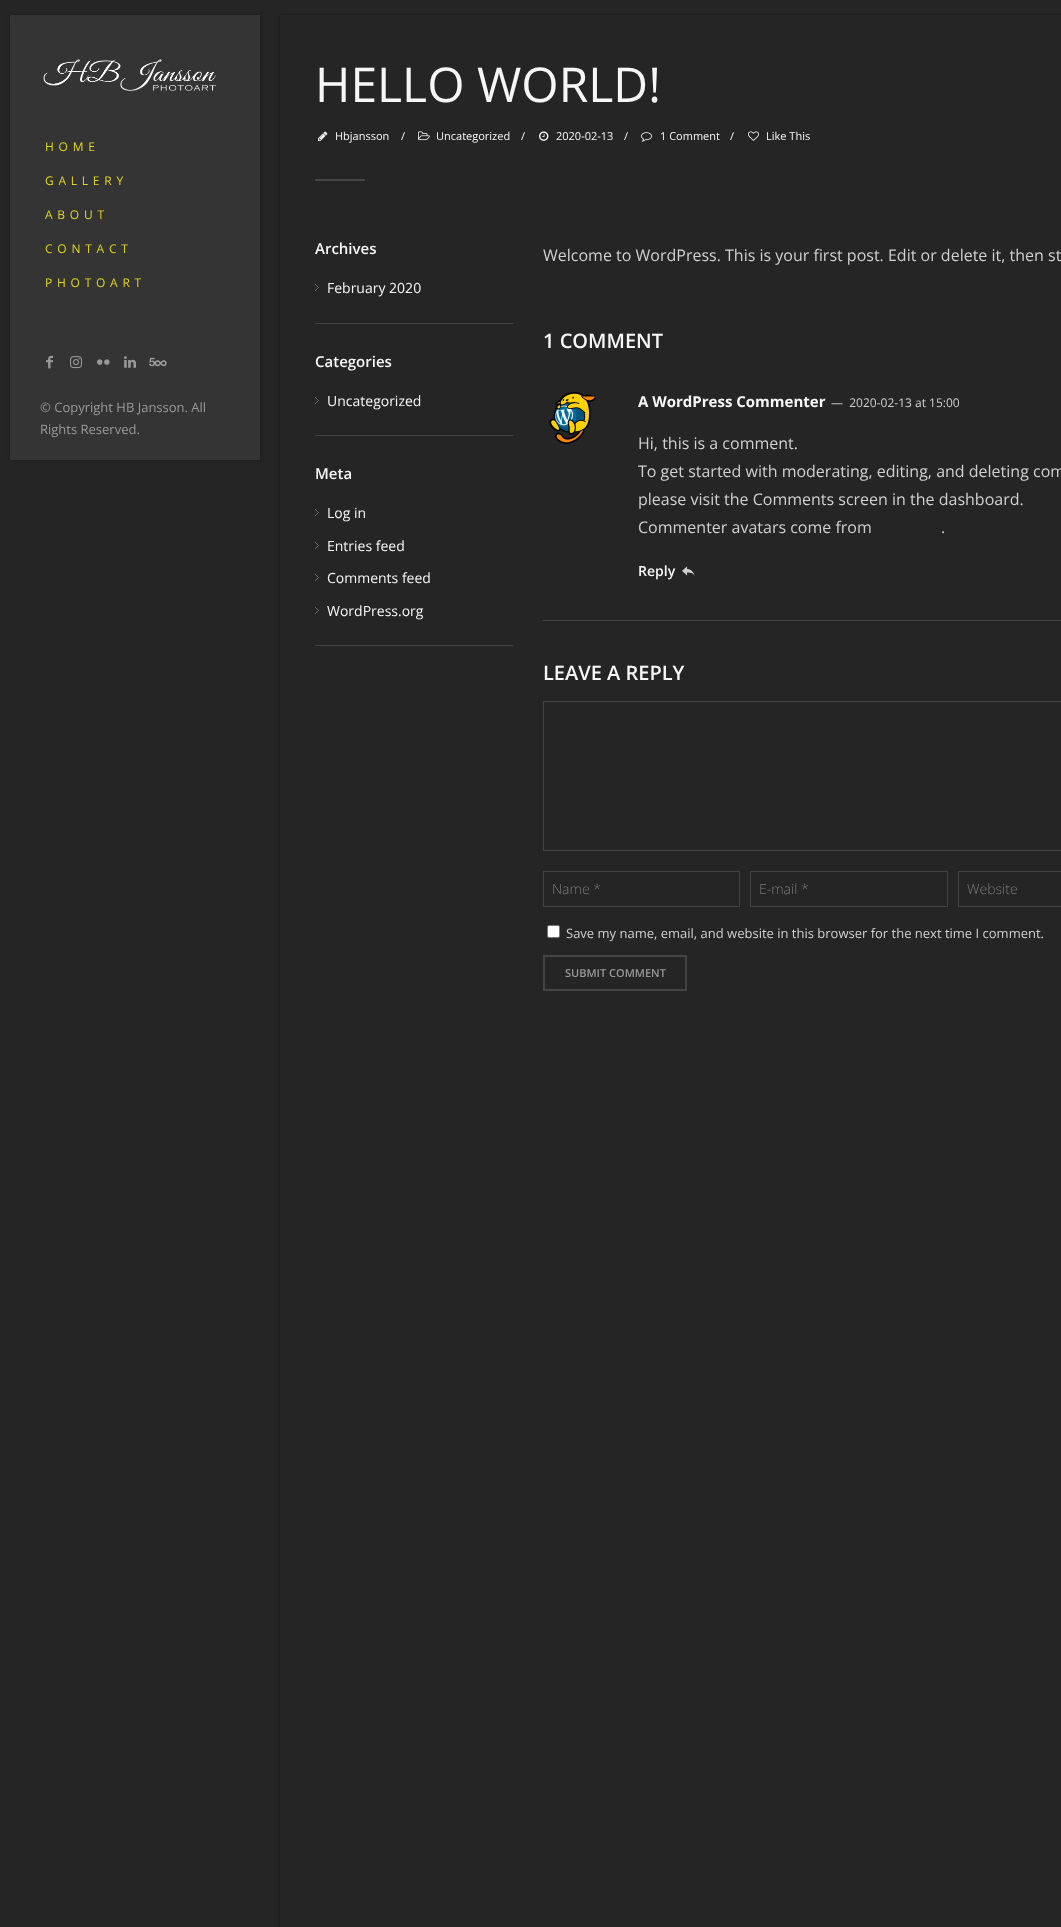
<!DOCTYPE html>
<meta charset="utf-8">
<style>body { margin: 0 } canvas { display: block }</style>
<canvas id="canvas" width="1061" height="1927"></canvas>
<script type="module">
  const canvas = document.getElementById("canvas");
  const g = canvas.getContext("2d");
  g.miterLimit = 4;
  g.fontKerning = "normal";
  function drawText(s, x, y, [font, color]) {
    g.font = font;
    g.fillStyle = color;
    g.fillText(s, x, y);
  }
  function fillBox(x, y, w, h, color) {
    g.fillStyle = color;
    g.fillRect(x, y, w, h);
  }
  async function drawPicture(src, x, y, w, h) {
    const img = new Image();
    img.src = src;
    await img.decode();
    g.drawImage(img, x, y, w, h);
  }

  const s1 = ["12px Open Sans", "#E0D61D"];
  const s2 = ["13px Open Sans", "#999999"];
  const s3 = ["48px Open Sans", "#F7F7F7"];
  const s4 = ["11px Open Sans", "#F7F7F7"];
  const s5 = ["600 15px Open Sans", "#F7F7F7"];
  const s6 = ["14px Open Sans", "#F7F7F7"];
  const s7 = ["16px Open Sans", "#D0D0D0"];
  const s8 = ["600 20px Open Sans", "#F7F7F7"];
  const s9 = ["bold 15px Open Sans", "#F7F7F7"];
  const s10 = ["12px Open Sans", "#D0D0D0"];
  const s11 = ["600 14px Open Sans", "#F7F7F7"];
  const s12 = ["300 14px Open Sans", "#7B7B7B"];
  const s13 = ["13px Open Sans", "#D0D0D0"];
  const s14 = ["600 11px Open Sans", "#999999"];

  fillBox(0, 0, 1061, 1927, "#252525");
  g.fillStyle = "rgba(0, 0, 0, 0.3)";
  g.filter = "blur(1.5px)";
  g.beginPath();
  g.rect(10, 15, 250, 445);
  g.fill();
  g.filter = "none";
  fillBox(10, 15, 250, 445, "#343434");
  await drawPicture("pic1.png", 43, 59, 173, 32);
  g.letterSpacing = "4.75px";
  drawText("HOME", 45, 151, s1);
  drawText("GALLERY", 45, 185, s1);
  drawText("ABOUT", 45, 219, s1);
  drawText("CONTACT", 45, 253, s1);
  drawText("PHOTOART", 45, 287, s1);
  await drawPicture("pic2.png", 46, 355, 7, 14);
  await drawPicture("pic3.png", 70, 356, 12, 13);
  await drawPicture("pic4.png", 97, 359, 13, 6);
  await drawPicture("pic5.png", 124, 356, 12, 12);
  await drawPicture("pic6.png", 149, 357, 18, 10);
  g.letterSpacing = "0px";
  drawText("© Copyright HB Jansson. All", 40, 412, s2);
  drawText("Rights Reserved.", 40, 434, s2);
  g.fillStyle = "rgba(0, 0, 0, 0.3)";
  g.filter = "blur(1.5px)";
  g.beginPath();
  g.rect(280, 15, 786, 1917);
  g.fill();
  g.filter = "none";
  fillBox(280, 15, 781, 1912, "#252525");
  drawText("HELLO WORLD!", 315, 102, s3);
  await drawPicture("pic7.png", 318, 131, 10, 10);
  drawText("Hbjansson", 335, 140, s4);
  drawText("/", 401, 140, s4);
  await drawPicture("pic8.png", 418, 131, 12, 10);
  drawText("Uncategorized", 436, 140, s4);
  drawText("/", 521, 140, s4);
  await drawPicture("pic9.png", 539, 131, 10, 10);
  drawText("2020-02-13", 556, 140, s4);
  drawText("/", 624, 140, s4);
  await drawPicture("pic10.png", 641, 132, 11, 10);
  drawText("1 Comment", 660, 140, s4);
  drawText("/", 730, 140, s4);
  await drawPicture("pic11.png", 748, 131, 11, 10);
  drawText("Like This", 766, 140, s4);
  fillBox(315, 179, 50, 2, "#444444");
  fillBox(315, 323, 198, 1, "#444444");
  drawText("Archives", 315, 254, s5);
  await drawPicture("pic12.png", 315, 284, 4, 7);
  drawText("February 2020", 327, 293, s6);
  fillBox(315, 435, 198, 1, "#444444");
  drawText("Categories", 315, 367, s5);
  await drawPicture("pic12.png", 315, 397, 4, 7);
  drawText("Uncategorized", 327, 406, s6);
  fillBox(315, 645, 198, 1, "#444444");
  drawText("Meta", 315, 479, s5);
  await drawPicture("pic12.png", 315, 509, 4, 7);
  drawText("Log in", 327, 518, s6);
  await drawPicture("pic12.png", 315, 542, 4, 7);
  drawText("Entries feed", 327, 551, s6);
  await drawPicture("pic12.png", 315, 574, 4, 7);
  drawText("Comments feed", 327, 583, s6);
  await drawPicture("pic12.png", 315, 607, 4, 7);
  drawText("WordPress.org", 327, 616, s6);
  drawText("Welcome to WordPress. This is your first post. Edit or delete it, then st", 543, 261, s7);
  drawText("1 COMMENT", 543, 348, s8);
  fillBox(543, 620, 518, 1, "#444444");
  await drawPicture("pic13.png", 549, 392, 47, 52);
  drawText("A WordPress Commenter", 638, 407, s9);
  drawText("—  2020-02-13 at 15:00", 831, 407, s10);
  drawText("Hi, this is a comment.", 638, 449, s7);
  drawText("To get started with moderating, editing, and deleting com", 638, 477, s7);
  drawText("please visit the Comments screen in the dashboard.", 638, 505, s7);
  drawText("Commenter avatars come from", 638, 533, s7);
  drawText(".", 941, 533, s7);
  drawText("Reply", 638, 576, s11);
  await drawPicture("pic14.png", 682, 566, 13, 10);
  drawText("LEAVE A REPLY", 543, 680, s8);
  g.strokeStyle = "#444444";
  g.strokeRect(543.5, 701.5, 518, 149);
  g.strokeRect(543.5, 871.5, 196, 35);
  drawText("Name *", 552, 894, s12);
  g.strokeRect(750.5, 871.5, 197, 35);
  drawText("E-mail *", 759, 894, s12);
  g.strokeRect(958.5, 871.5, 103, 35);
  drawText("Website", 967, 894, s12);
  g.fillStyle = "#FFFFFF";
  g.beginPath();
  g.roundRect(547.5, 925.5, 12, 12, 1.5);
  g.fill();
  g.strokeStyle = "#767676";
  g.stroke();
  drawText("Save my name, email, and website in this browser for the next time I comment.", 566, 938, s13);
  g.strokeStyle = "#444444";
  g.lineWidth = 2;
  g.strokeRect(544, 956, 142, 34);
  drawText("SUBMIT COMMENT", 565, 977, s14);
</script>
